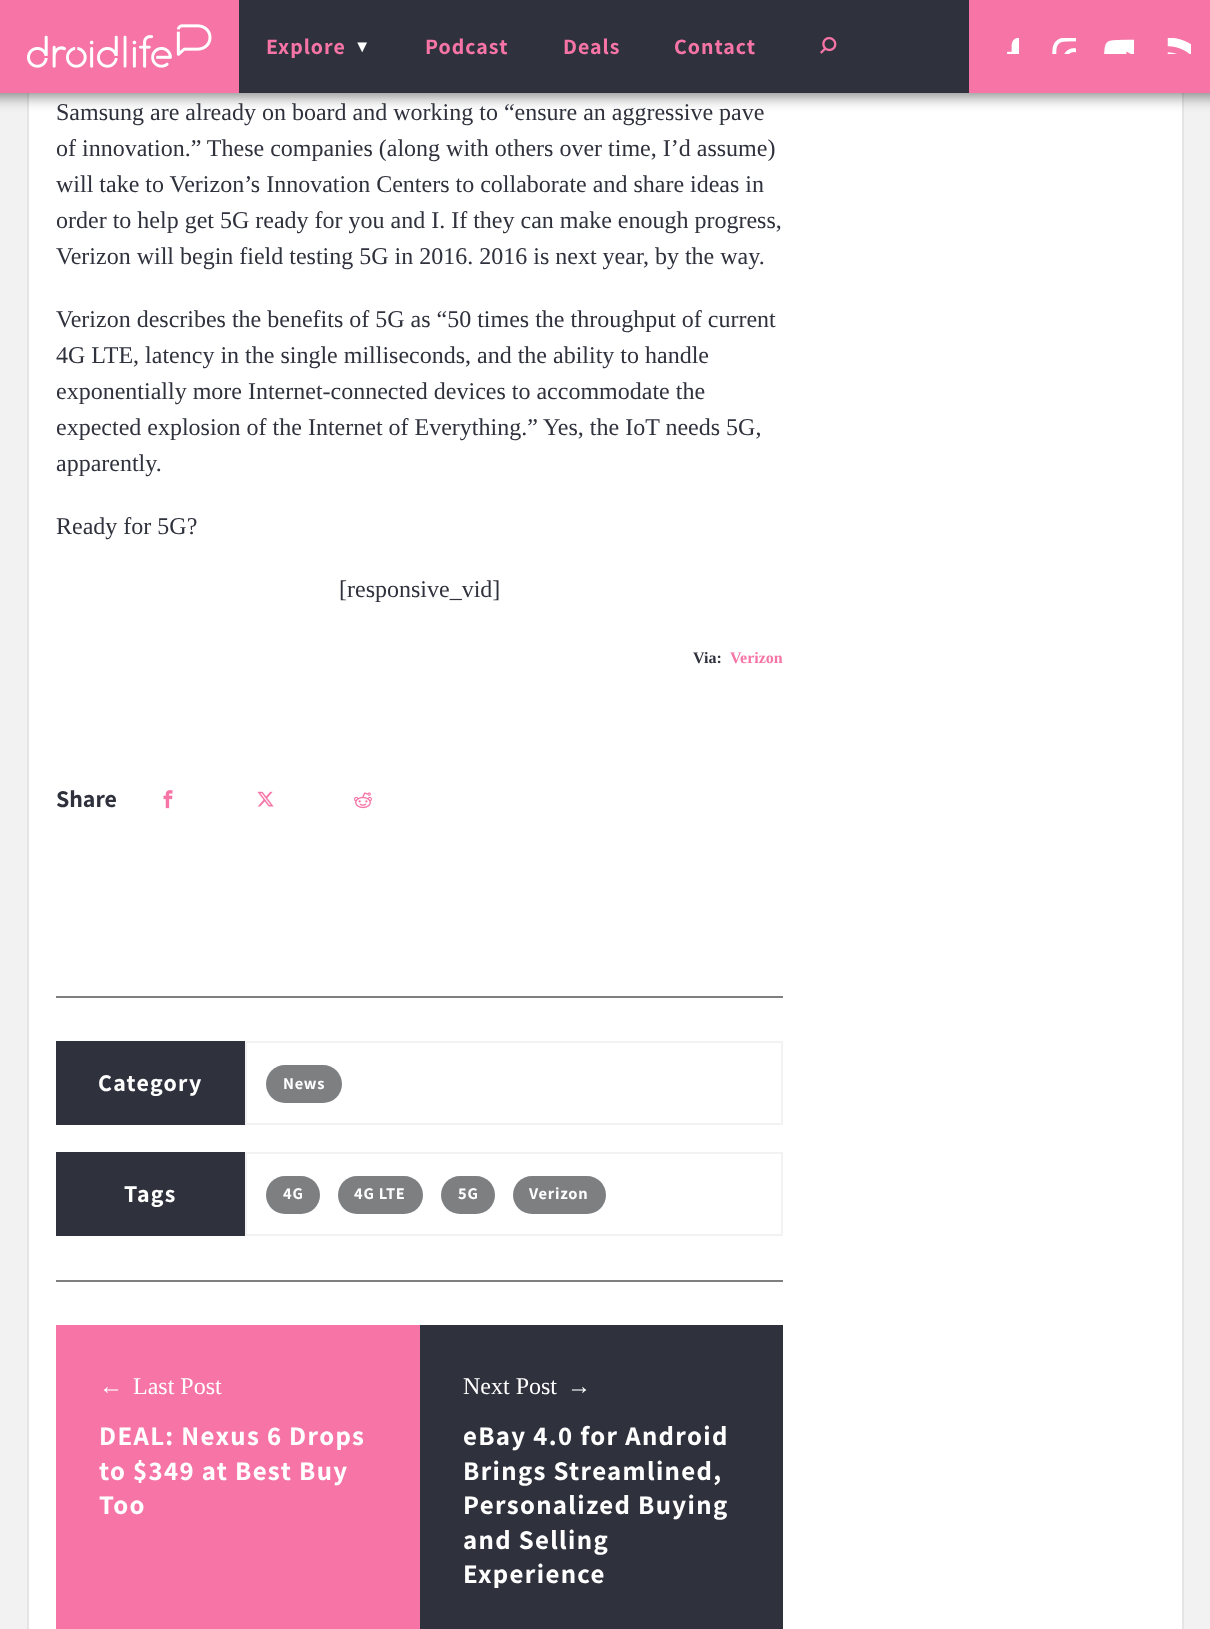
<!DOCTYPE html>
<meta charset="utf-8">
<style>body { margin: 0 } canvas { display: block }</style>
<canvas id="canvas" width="1210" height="1629"></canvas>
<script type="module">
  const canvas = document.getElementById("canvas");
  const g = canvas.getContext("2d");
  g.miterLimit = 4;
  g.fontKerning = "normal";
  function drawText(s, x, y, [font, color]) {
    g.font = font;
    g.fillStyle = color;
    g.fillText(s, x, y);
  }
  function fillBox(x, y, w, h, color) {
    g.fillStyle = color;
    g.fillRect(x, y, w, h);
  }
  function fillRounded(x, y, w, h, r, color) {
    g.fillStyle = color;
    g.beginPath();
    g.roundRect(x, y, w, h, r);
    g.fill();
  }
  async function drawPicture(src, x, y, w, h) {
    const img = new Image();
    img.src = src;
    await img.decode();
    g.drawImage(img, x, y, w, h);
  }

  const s1 = ["200 22px Assistant", "#F674A6"];
  const s2 = ["16.5px Liberation Sans", "#FFFFFF"];
  const s3 = ["24px Liberation Serif", "#2F313C"];
  const s4 = ["bold 16px Liberation Serif", "#2F313C"];
  const s5 = ["bold 16px Liberation Serif", "#F674A6"];
  const s6 = ["200 24px Assistant", "#2F313C"];
  const s7 = ["200 24px Assistant", "#FFFFFF"];
  const s8 = ["200 16.5px Assistant", "#FFFFFF"];
  const s9 = ["24px Liberation Serif", "#FFFFFF"];
  const s10 = ["200 27px Assistant", "#FFFFFF"];

  fillBox(0, 0, 1210, 1629, "#F2F2F3");
  fillBox(29, 93, 1153, 1536, "#FFFFFF");
  g.strokeStyle = "#E5E5E6";
  g.lineWidth = 2;
  g.strokeRect(28, -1, 1155, 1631);
  g.fillStyle = "rgba(0, 0, 0, 0.5)";
  g.filter = "blur(7.5px)";
  g.beginPath();
  g.rect(-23, -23, 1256, 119);
  g.fill();
  g.filter = "none";
  fillBox(0, 0, 239, 93, "#F674A6");
  await drawPicture("pic1.png", 27, 24, 185, 44);
  fillBox(239, 0, 730, 93, "#2F313C");
  g.letterSpacing = "1px";
  drawText("Explore", 266, 54, s1);
  drawText("▼", 354, 52, s2);
  drawText("Podcast", 425, 54, s1);
  drawText("Deals", 563, 54, s1);
  drawText("Contact", 674, 54, s1);
  await drawPicture("pic2.png", 820, 37, 17, 17);
  fillBox(969, 0, 241, 93, "#F674A6");
  await drawPicture("pic3.png", 1007, 38, 12, 16);
  await drawPicture("pic4.png", 1052, 38, 24, 16);
  await drawPicture("pic5.png", 1104, 39, 30, 15);
  await drawPicture("pic6.png", 1167, 38, 24, 16);
  fillBox(56, 996, 727, 2, "#7E7F81");
  g.letterSpacing = "0px";
  drawText("Samsung are already on board and working to “ensure an aggressive pave", 56, 120, s3);
  drawText("of innovation.” These companies (along with others over time, I’d assume)", 56, 156, s3);
  drawText("will take to Verizon’s Innovation Centers to collaborate and share ideas in", 56, 192, s3);
  drawText("order to help get 5G ready for you and I. If they can make enough progress,", 56, 228, s3);
  drawText("Verizon will begin field testing 5G in 2016. 2016 is next year, by the way.", 56, 264, s3);
  drawText("Verizon describes the benefits of 5G as “50 times the throughput of current", 56, 327, s3);
  drawText("4G LTE, latency in the single milliseconds, and the ability to handle", 56, 363, s3);
  drawText("exponentially more Internet-connected devices to accommodate the", 56, 399, s3);
  drawText("expected explosion of the Internet of Everything.” Yes, the IoT needs 5G,", 56, 435, s3);
  drawText("apparently.", 56, 471, s3);
  drawText("Ready for 5G?", 56, 534, s3);
  drawText("[responsive_vid]", 339, 597, s3);
  drawText("Via:", 693, 663, s4);
  drawText("Verizon", 730, 663, s5);
  drawText("Share", 56, 807, s6);
  await drawPicture("pic7.png", 163, 790, 10, 19);
  await drawPicture("pic8.png", 257, 791, 17, 16);
  await drawPicture("pic9.png", 354, 792, 18, 17);
  fillBox(56, 1280, 727, 2, "#7E7F81");
  fillBox(56, 1041, 189, 84, "#2F313C");
  g.letterSpacing = "1.25px";
  drawText("Category", 98, 1091, s7);
  g.strokeStyle = "#F2F2F3";
  g.strokeRect(246, 1042, 536, 82);
  fillRounded(266, 1065, 76, 38, 19, "#7E7F81");
  g.letterSpacing = "0.75px";
  drawText("News", 283, 1089, s8);
  fillBox(56, 1152, 189, 84, "#2F313C");
  g.letterSpacing = "1.25px";
  drawText("Tags", 124, 1202, s7);
  g.strokeRect(246, 1153, 536, 82);
  fillRounded(266, 1176, 54, 38, 19, "#7E7F81");
  g.letterSpacing = "0.75px";
  drawText("4G", 283, 1199, s8);
  fillRounded(338, 1176, 85, 38, 19, "#7E7F81");
  drawText("4G LTE", 354, 1199, s8);
  fillRounded(441, 1176, 54, 38, 19, "#7E7F81");
  drawText("5G", 458, 1199, s8);
  fillRounded(513, 1176, 93, 38, 19, "#7E7F81");
  drawText("Verizon", 529, 1199, s8);
  fillBox(56, 1325, 364, 304, "#F674A6");
  g.letterSpacing = "0px";
  drawText("←", 99, 1394, s9);
  drawText("Last Post", 133, 1394, s9);
  g.letterSpacing = "1.35px";
  drawText("DEAL: Nexus 6 Drops", 99, 1445, s10);
  drawText("to $349 at Best Buy", 99, 1480, s10);
  drawText("Too", 99, 1514, s10);
  fillBox(420, 1325, 363, 304, "#2F313C");
  g.letterSpacing = "0px";
  drawText("Next Post", 463, 1394, s9);
  drawText("→", 567, 1394, s9);
  g.letterSpacing = "1.35px";
  drawText("eBay 4.0 for Android", 463, 1445, s10);
  drawText("Brings Streamlined,", 463, 1480, s10);
  drawText("Personalized Buying", 463, 1514, s10);
  drawText("and Selling", 463, 1549, s10);
  drawText("Experience", 463, 1583, s10);
</script>
